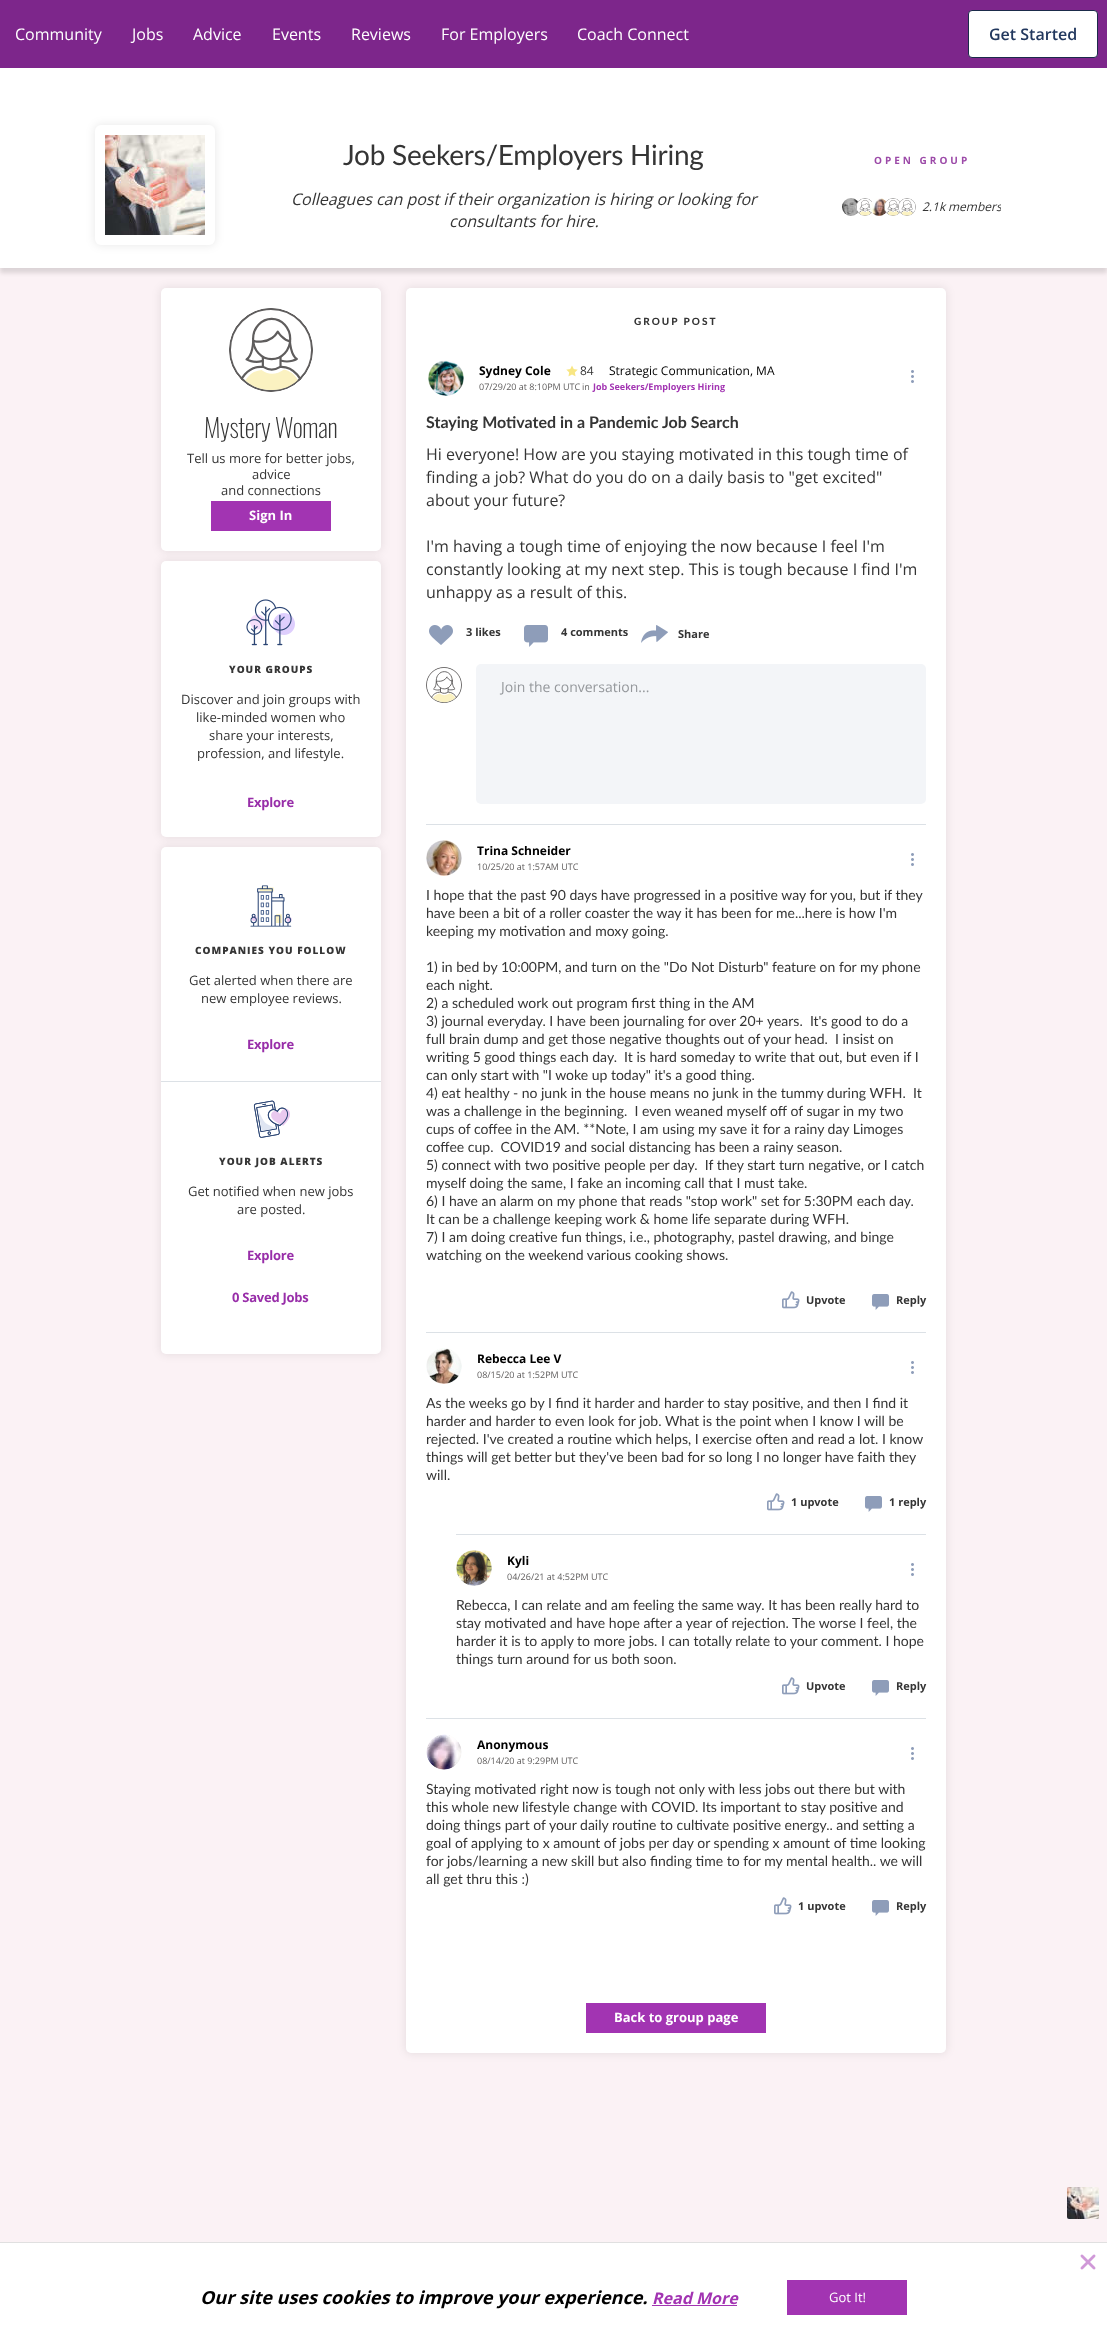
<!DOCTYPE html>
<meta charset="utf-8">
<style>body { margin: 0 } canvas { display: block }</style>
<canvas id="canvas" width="1107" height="2352"></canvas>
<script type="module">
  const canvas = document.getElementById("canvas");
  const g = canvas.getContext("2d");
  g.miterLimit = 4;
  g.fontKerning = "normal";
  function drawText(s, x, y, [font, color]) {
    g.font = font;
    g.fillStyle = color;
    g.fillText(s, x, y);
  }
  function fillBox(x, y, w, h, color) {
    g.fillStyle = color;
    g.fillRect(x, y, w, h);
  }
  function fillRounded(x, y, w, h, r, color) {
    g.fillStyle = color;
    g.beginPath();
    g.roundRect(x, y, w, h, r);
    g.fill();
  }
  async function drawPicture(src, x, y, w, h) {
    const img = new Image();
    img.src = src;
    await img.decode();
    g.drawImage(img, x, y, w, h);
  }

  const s1 = ["16px Open Sans", "#FFFFFF"];
  const s2 = ["600 16px Open Sans", "#22385E"];
  const s3 = ["28px Lato", "#353535"];
  const s4 = ["italic 16px Open Sans", "#353535"];
  const s5 = ["bold 10px Open Sans", "#9C4AA8"];
  const s6 = ["italic 12px Open Sans", "#353535"];
  const s7 = ["200 26px Oswald", "#353535"];
  const s8 = ["13px Open Sans", "#353535"];
  const s9 = ["bold 13px Open Sans", "#FFFFFF"];
  const s10 = ["800 10px Open Sans", "#353535"];
  const s11 = ["bold 13px Open Sans", "#982EA9"];
  const s12 = ["900 10px Lato", "#353535"];
  const s13 = ["bold 12px Open Sans", "#000000"];
  const s14 = ["12px Open Sans", "#353535"];
  const s15 = ["12px Open Sans", "#000000"];
  const s16 = ["9px Open Sans", "#5F5D5D"];
  const s17 = ["bold 9px Open Sans", "#A234B2"];
  const s18 = ["bold 16px Lato", "#353535"];
  const s19 = ["16px Open Sans", "#353535"];
  const s20 = ["bold 11px Open Sans", "#353535"];
  const s21 = ["14px Open Sans", "#95989C"];
  const s22 = ["14px Lato", "#353535"];
  const s23 = ["italic bold 18px Open Sans", "#000000"];
  const s24 = ["italic bold 16px Open Sans", "#A234B2"];
  const s25 = ["13px Open Sans", "#FFFFFF"];

  fillBox(0, 0, 1107, 2352, "#FBF2F5");
  g.fillStyle = "rgba(0, 0, 0, 0.12)";
  g.filter = "blur(2px)";
  g.beginPath();
  g.rect(0, 73, 1107, 200);
  g.fill();
  g.filter = "none";
  fillBox(0, 0, 1107, 68, "#7D268B");
  drawText("Community", 15, 40, s1);
  drawText("Jobs", 132, 40, s1);
  drawText("Advice", 193, 40, s1);
  drawText("Events", 272, 40, s1);
  drawText("Reviews", 351, 40, s1);
  drawText("For Employers", 441, 40, s1);
  drawText("Coach Connect", 577, 40, s1);
  g.beginPath();
  g.roundRect(968.5, 10.5, 129, 47, 3.5);
  g.fill();
  g.strokeStyle = "#1B2B4A";
  g.stroke();
  drawText("Get Started", 989, 40, s2);
  fillBox(0, 68, 1107, 200, "#FFFFFF");
  g.fillStyle = "rgba(0, 0, 0, 0.08)";
  g.filter = "blur(4px)";
  g.beginPath();
  g.roundRect(94, 124, 122, 122, 7);
  g.fill();
  g.filter = "none";
  fillRounded(95, 125, 120, 120, 6, "#FFFFFF");
  await drawPicture("pic1.png", 105, 135, 100, 100);
  g.letterSpacing = "-0.25px";
  drawText("Job Seekers/Employers Hiring", 343, 165, s3);
  g.letterSpacing = "0px";
  drawText("Colleagues can post if their organization is hiring or looking for", 291, 205, s4);
  drawText("consultants for hire.", 449, 227, s4);
  g.letterSpacing = "3px";
  drawText("OPEN GROUP", 874, 164, s5);
  await drawPicture("pic2.png", 842, 198, 17, 18);
  g.fillStyle = "#FFFFFF";
  g.beginPath();
  g.arc(865, 207, 9, 0, Math.PI * 2);
  g.fill();
  await drawPicture("pic3.png", 856, 198, 16, 18);
  g.beginPath();
  g.arc(879, 207, 9, 0, Math.PI * 2);
  g.fill();
  await drawPicture("pic4.png", 870, 198, 17, 18);
  g.beginPath();
  g.arc(893, 207, 9, 0, Math.PI * 2);
  g.fill();
  await drawPicture("pic5.png", 884, 198, 16, 18);
  g.beginPath();
  g.arc(907, 207, 9, 0, Math.PI * 2);
  g.fill();
  await drawPicture("pic6.png", 898, 198, 18, 18);
  g.letterSpacing = "0px";
  drawText("2.1k", 922, 211, s6);
  g.save();
  g.beginPath();
  g.rect(842, 198, 159, 18);
  g.clip();
  drawText("members", 948, 211, s6);
  g.restore();
  g.fillStyle = "rgba(0, 0, 0, 0.08)";
  g.filter = "blur(4px)";
  g.beginPath();
  g.roundRect(160, 287, 222, 265, 6);
  g.fill();
  g.filter = "none";
  fillRounded(161, 288, 220, 263, 5, "#FFFFFF");
  await drawPicture("pic7.png", 229, 308, 84, 84);
  g.letterSpacing = "-0.4px";
  drawText("Mystery Woman", 204, 438, s7);
  g.letterSpacing = "0px";
  drawText("Tell us more for better jobs,", 187, 463, s8);
  drawText("advice", 252, 479, s8);
  drawText("and connections", 221, 495, s8);
  fillBox(211, 501, 120, 30, "#A234B2");
  drawText("Sign In", 249, 520, s9);
  g.fillStyle = "rgba(0, 0, 0, 0.08)";
  g.filter = "blur(4px)";
  g.beginPath();
  g.roundRect(160, 560, 222, 278, 6);
  g.fill();
  g.filter = "none";
  fillRounded(161, 561, 220, 276, 5, "#FFFFFF");
  await drawPicture("pic8.png", 246, 599, 49, 47);
  g.letterSpacing = "1px";
  drawText("YOUR GROUPS", 229, 673, s10);
  g.letterSpacing = "0px";
  drawText("Discover and join groups with", 181, 704, s8);
  drawText("like-minded women who", 196, 722, s8);
  drawText("share your interests,", 209, 740, s8);
  drawText("profession, and lifestyle.", 197, 758, s8);
  g.letterSpacing = "-0.25px";
  drawText("Explore", 247, 807, s11);
  g.fillStyle = "rgba(0, 0, 0, 0.08)";
  g.filter = "blur(4px)";
  g.beginPath();
  g.roundRect(160, 846, 222, 509, 6);
  g.fill();
  g.filter = "none";
  fillRounded(161, 847, 220, 507, 5, "#FFFFFF");
  await drawPicture("pic9.png", 250, 885, 42, 42);
  g.letterSpacing = "1px";
  drawText("COMPANIES YOU FOLLOW", 195, 954, s10);
  g.letterSpacing = "0px";
  drawText("Get alerted when there are", 189, 985, s8);
  drawText("new employee reviews.", 201, 1003, s8);
  g.letterSpacing = "-0.25px";
  drawText("Explore", 247, 1049, s11);
  fillBox(161, 1081, 220, 1, "#DCE1E6");
  await drawPicture("pic10.png", 253, 1100, 37, 38);
  g.letterSpacing = "1px";
  drawText("YOUR JOB ALERTS", 219, 1165, s10);
  g.letterSpacing = "0px";
  drawText("Get notified when new jobs", 188, 1196, s8);
  drawText("are posted.", 237, 1214, s8);
  g.letterSpacing = "-0.25px";
  drawText("Explore", 247, 1260, s11);
  drawText("0 Saved Jobs", 232, 1302, s11);
  g.fillStyle = "rgba(0, 0, 0, 0.08)";
  g.filter = "blur(4px)";
  g.beginPath();
  g.roundRect(405, 287, 542, 1767, 6);
  g.fill();
  g.filter = "none";
  fillRounded(406, 288, 540, 1765, 5, "#FFFFFF");
  g.letterSpacing = "2px";
  drawText("GROUP POST", 634, 325, s12);
  await drawPicture("pic11.png", 428, 360, 36, 36);
  g.letterSpacing = "0px";
  drawText("Sydney Cole", 479, 375, s13);
  await drawPicture("pic12.png", 566, 365, 12, 12);
  drawText("84", 580, 375, s14);
  drawText("Strategic Communication, MA", 609, 375, s15);
  drawText("07/29/20 at 8:10PM UTC", 479, 390, s16);
  drawText("in", 582, 390, s16);
  drawText("Job Seekers/Employers Hiring", 593, 390, s17);
  await drawPicture("pic13.png", 911, 370, 3, 13);
  drawText("Staying Motivated in a Pandemic Job Search", 426, 428, s18);
  drawText("Hi everyone! How are you staying motivated in this tough time of", 426, 460, s19);
  drawText("finding a job? What do you do on a daily basis to \"get excited\"", 426, 483, s19);
  drawText("about your future?", 426, 506, s19);
  drawText("I'm having a tough time of enjoying the now because I feel I'm", 426, 552, s19);
  drawText("constantly looking at my next step. This is tough because I find I'm", 426, 575, s19);
  drawText("unhappy as a result of this.", 426, 598, s19);
  await drawPicture("pic14.png", 429, 625, 24, 20);
  drawText("3 likes", 466, 636, s20);
  await drawPicture("pic15.png", 524, 625, 24, 22);
  drawText("4 comments", 561, 636, s20);
  await drawPicture("pic16.png", 641, 625, 27, 18);
  drawText("Share", 678, 638, s20);
  await drawPicture("pic17.png", 426, 667, 36, 36);
  fillRounded(476, 664, 450, 140, 5, "#F3F5F8");
  drawText("Join the conversation...", 501, 692, s21);
  fillBox(426, 824, 500, 1, "#DCE1E6");
  await drawPicture("pic18.png", 426, 840, 36, 36);
  drawText("Trina Schneider", 477, 855, s13);
  drawText("10/25/20 at 1:57AM UTC", 477, 870, s16);
  await drawPicture("pic13.png", 911, 853, 3, 13);
  drawText("I hope that the past 90 days have progressed in a positive way for you, but if they", 426, 900, s22);
  drawText("have been a bit of a roller coaster the way it has been for me...here is how I'm", 426, 918, s22);
  drawText("keeping my motivation and moxy going.", 426, 936, s22);
  drawText("1) in bed by 10:00PM, and turn on the \"Do Not Disturb\" feature on for my phone", 426, 972, s22);
  drawText("each night.", 426, 990, s22);
  drawText("2) a scheduled work out program first thing in the AM", 426, 1008, s22);
  drawText("3) journal everyday. I have been journaling for over 20+ years.  It's good to do a", 426, 1026, s22);
  drawText("full brain dump and get those negative thoughts out of your head.  I insist on", 426, 1044, s22);
  drawText("writing 5 good things each day.  It is hard someday to write that out, but even if I", 426, 1062, s22);
  drawText("can only start with \"I woke up today\" it's a good thing.", 426, 1080, s22);
  drawText("4) eat healthy - no junk in the house means no junk in the tummy during WFH.  It", 426, 1098, s22);
  drawText("was a challenge in the beginning.  I even weaned myself off of sugar in my two", 426, 1116, s22);
  drawText("cups of coffee in the AM. **Note, I am using my save it for a rainy day Limoges", 426, 1134, s22);
  drawText("coffee cup.  COVID19 and social distancing has been a rainy season.", 426, 1152, s22);
  drawText("5) connect with two positive people per day.  If they start turn negative, or I catch", 426, 1170, s22);
  drawText("myself doing the same, I fake an incoming call that I must take.", 426, 1188, s22);
  drawText("6) I have an alarm on my phone that reads \"stop work\" set for 5:30PM each day.", 426, 1206, s22);
  drawText("It can be a challenge keeping work & home life separate during WFH.", 426, 1224, s22);
  drawText("7) I am doing creative fun things, i.e., photography, pastel drawing, and binge", 426, 1242, s22);
  drawText("watching on the weekend various cooking shows.", 426, 1260, s22);
  await drawPicture("pic19.png", 782, 1291, 18, 18);
  drawText("Upvote", 806, 1304, s20);
  await drawPicture("pic20.png", 872, 1294, 17, 16);
  drawText("Reply", 896, 1304, s20);
  fillBox(426, 1332, 500, 1, "#DCE1E6");
  await drawPicture("pic21.png", 426, 1348, 36, 36);
  drawText("Rebecca Lee V", 477, 1363, s13);
  drawText("08/15/20 at 1:52PM UTC", 477, 1378, s16);
  await drawPicture("pic13.png", 911, 1361, 3, 13);
  drawText("As the weeks go by I find it harder and harder to stay positive, and then I find it", 426, 1408, s22);
  drawText("harder and harder to even look for job. What is the point when I know I will be", 426, 1426, s22);
  drawText("rejected. I've created a routine which helps, I exercise often and read a lot. I know", 426, 1444, s22);
  drawText("things will get better but they've been bad for so long I no longer have faith they", 426, 1462, s22);
  drawText("will.", 426, 1480, s22);
  await drawPicture("pic19.png", 767, 1493, 18, 18);
  drawText("1 upvote", 791, 1506, s20);
  await drawPicture("pic20.png", 865, 1496, 17, 16);
  drawText("1 reply", 889, 1506, s20);
  fillBox(456, 1534, 470, 1, "#DCE1E6");
  await drawPicture("pic22.png", 456, 1550, 36, 36);
  drawText("Kyli", 507, 1565, s13);
  drawText("04/26/21 at 4:52PM UTC", 507, 1580, s16);
  await drawPicture("pic13.png", 911, 1563, 3, 13);
  drawText("Rebecca, I can relate and am feeling the same way. It has been really hard to", 456, 1610, s22);
  drawText("stay motivated and have hope after a year of rejection. The worse I feel, the", 456, 1628, s22);
  drawText("harder it is to apply to more jobs. I can totally relate to your comment. I hope", 456, 1646, s22);
  drawText("things turn around for us both soon.", 456, 1664, s22);
  await drawPicture("pic19.png", 782, 1677, 18, 18);
  drawText("Upvote", 806, 1690, s20);
  await drawPicture("pic20.png", 872, 1680, 17, 16);
  drawText("Reply", 896, 1690, s20);
  fillBox(426, 1718, 500, 1, "#DCE1E6");
  await drawPicture("pic23.png", 426, 1734, 36, 36);
  drawText("Anonymous", 477, 1749, s13);
  drawText("08/14/20 at 9:29PM UTC", 477, 1764, s16);
  await drawPicture("pic13.png", 911, 1747, 3, 13);
  drawText("Staying motivated right now is tough not only with less jobs out there but with", 426, 1794, s22);
  drawText("this whole new lifestyle change with COVID. Its important to stay positive and", 426, 1812, s22);
  drawText("doing things part of your daily routine to cultivate positive energy.. and setting a", 426, 1830, s22);
  drawText("goal of applying to x amount of jobs per day or spending x amount of time looking", 426, 1848, s22);
  drawText("for jobs/learning a new skill but also finding time to for my mental health.. we will", 426, 1866, s22);
  drawText("all get thru this :)", 426, 1884, s22);
  await drawPicture("pic19.png", 774, 1897, 18, 18);
  drawText("1 upvote", 798, 1910, s20);
  await drawPicture("pic20.png", 872, 1900, 17, 16);
  drawText("Reply", 896, 1910, s20);
  fillBox(586, 2003, 180, 30, "#A234B2");
  drawText("Back to group page", 614, 2022, s9);
  await drawPicture("pic24.png", 1067, 2187, 32, 32);
  fillBox(0, 2243, 1107, 109, "#FFFFFF");
  fillBox(0, 2242, 1107, 1, "#E0E0E0");
  await drawPicture("pic25.png", 1080, 2254, 16, 16);
  drawText("Our site uses cookies to improve your experience.", 200, 2304, s23);
  drawText("Read More", 652, 2304, s24);
  fillBox(652, 2305, 85, 1, "#A234B2");
  fillBox(787, 2280, 120, 35, "#A234B2");
  drawText("Got It!", 829, 2302, s25);
</script>
